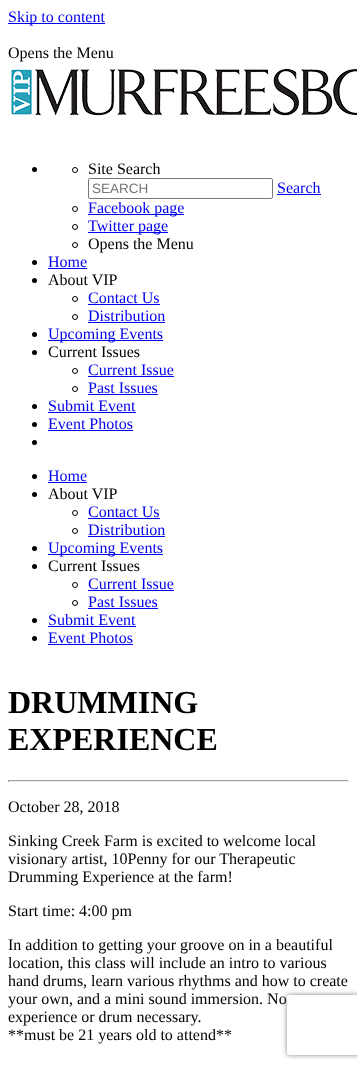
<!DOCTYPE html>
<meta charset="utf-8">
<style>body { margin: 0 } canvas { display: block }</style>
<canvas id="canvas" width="357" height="1069"></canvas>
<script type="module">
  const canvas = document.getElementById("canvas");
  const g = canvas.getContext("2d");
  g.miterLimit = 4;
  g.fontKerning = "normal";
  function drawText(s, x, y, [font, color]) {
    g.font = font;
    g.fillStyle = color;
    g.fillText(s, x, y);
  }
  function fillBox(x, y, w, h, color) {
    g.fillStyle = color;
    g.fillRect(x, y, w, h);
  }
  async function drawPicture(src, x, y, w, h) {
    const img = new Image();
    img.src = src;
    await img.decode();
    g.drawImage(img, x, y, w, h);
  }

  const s1 = ["16px Liberation Serif", "#0000EE"];
  const s2 = ["16px Liberation Serif", "#000000"];
  const s3 = ["13.5px Liberation Sans", "#757575"];
  const s4 = ["bold 32px Liberation Serif", "#000000"];

  fillBox(0, 0, 357, 1069, "#FFFFFF");
  fillBox(8, 23, 97, 1, "#0000EE");
  drawText("Skip to content", 8, 22, s1);
  drawText("Opens the Menu", 8, 58, s2);
  await drawPicture("pic1.png", 11, 68, 346, 48);
  g.beginPath();
  g.arc(34.5, 169.5, 2.5, 0, Math.PI * 2);
  g.fill();
  g.beginPath();
  g.arc(75, 170, 2.5, 0, Math.PI * 2);
  g.strokeStyle = "#000000";
  g.stroke();
  drawText("Site Search", 88, 174, s2);
  g.beginPath();
  g.roundRect(88.5, 178.5, 184, 20, 1.5);
  g.strokeStyle = "#767676";
  g.stroke();
  drawText("SEARCH", 92, 193, s3);
  drawText("Search", 277, 193, s1);
  fillBox(277, 194, 44, 1, "#0000EE");
  g.beginPath();
  g.arc(75, 209, 2.5, 0, Math.PI * 2);
  g.strokeStyle = "#000000";
  g.stroke();
  fillBox(88, 214, 96, 1, "#0000EE");
  drawText("Facebook page", 88, 213, s1);
  g.beginPath();
  g.arc(75, 227, 2.5, 0, Math.PI * 2);
  g.stroke();
  fillBox(88, 232, 80, 1, "#0000EE");
  drawText("Twitter page", 88, 231, s1);
  g.beginPath();
  g.arc(75, 245, 2.5, 0, Math.PI * 2);
  g.stroke();
  drawText("Opens the Menu", 88, 249, s2);
  g.beginPath();
  g.arc(34.5, 262.5, 2.5, 0, Math.PI * 2);
  g.fill();
  drawText("Home", 48, 267, s1);
  fillBox(48, 268, 39, 1, "#0000EE");
  g.fillStyle = "#000000";
  g.beginPath();
  g.arc(34.5, 280.5, 2.5, 0, Math.PI * 2);
  g.fill();
  drawText("About VIP", 48, 285, s2);
  g.beginPath();
  g.arc(75, 299, 2.5, 0, Math.PI * 2);
  g.stroke();
  drawText("Contact Us", 88, 303, s1);
  fillBox(88, 304, 72, 1, "#0000EE");
  g.beginPath();
  g.arc(75, 317, 2.5, 0, Math.PI * 2);
  g.stroke();
  drawText("Distribution", 88, 321, s1);
  fillBox(88, 322, 77, 1, "#0000EE");
  g.fillStyle = "#000000";
  g.beginPath();
  g.arc(34.5, 334.5, 2.5, 0, Math.PI * 2);
  g.fill();
  fillBox(48, 340, 115, 1, "#0000EE");
  drawText("Upcoming Events", 48, 339, s1);
  g.fillStyle = "#000000";
  g.beginPath();
  g.arc(34.5, 352.5, 2.5, 0, Math.PI * 2);
  g.fill();
  drawText("Current Issues", 48, 357, s2);
  g.beginPath();
  g.arc(75, 371, 2.5, 0, Math.PI * 2);
  g.stroke();
  drawText("Current Issue", 88, 375, s1);
  fillBox(88, 376, 86, 1, "#0000EE");
  g.beginPath();
  g.arc(75, 389, 2.5, 0, Math.PI * 2);
  g.stroke();
  drawText("Past Issues", 88, 393, s1);
  fillBox(88, 394, 70, 1, "#0000EE");
  g.fillStyle = "#000000";
  g.beginPath();
  g.arc(34.5, 406.5, 2.5, 0, Math.PI * 2);
  g.fill();
  drawText("Submit Event", 48, 411, s1);
  fillBox(48, 412, 88, 1, "#0000EE");
  g.fillStyle = "#000000";
  g.beginPath();
  g.arc(34.5, 424.5, 2.5, 0, Math.PI * 2);
  g.fill();
  drawText("Event Photos", 48, 429, s1);
  fillBox(48, 430, 85, 1, "#0000EE");
  g.fillStyle = "#000000";
  g.beginPath();
  g.arc(34.5, 442.5, 2.5, 0, Math.PI * 2);
  g.fill();
  g.beginPath();
  g.arc(34.5, 476.5, 2.5, 0, Math.PI * 2);
  g.fill();
  drawText("Home", 48, 481, s1);
  fillBox(48, 482, 39, 1, "#0000EE");
  g.fillStyle = "#000000";
  g.beginPath();
  g.arc(34.5, 494.5, 2.5, 0, Math.PI * 2);
  g.fill();
  drawText("About VIP", 48, 499, s2);
  g.beginPath();
  g.arc(75, 513, 2.5, 0, Math.PI * 2);
  g.stroke();
  drawText("Contact Us", 88, 517, s1);
  fillBox(88, 518, 72, 1, "#0000EE");
  g.beginPath();
  g.arc(75, 531, 2.5, 0, Math.PI * 2);
  g.stroke();
  drawText("Distribution", 88, 535, s1);
  fillBox(88, 536, 77, 1, "#0000EE");
  g.fillStyle = "#000000";
  g.beginPath();
  g.arc(34.5, 548.5, 2.5, 0, Math.PI * 2);
  g.fill();
  fillBox(48, 554, 115, 1, "#0000EE");
  drawText("Upcoming Events", 48, 553, s1);
  g.fillStyle = "#000000";
  g.beginPath();
  g.arc(34.5, 566.5, 2.5, 0, Math.PI * 2);
  g.fill();
  drawText("Current Issues", 48, 571, s2);
  g.beginPath();
  g.arc(75, 585, 2.5, 0, Math.PI * 2);
  g.stroke();
  drawText("Current Issue", 88, 589, s1);
  fillBox(88, 590, 86, 1, "#0000EE");
  g.beginPath();
  g.arc(75, 603, 2.5, 0, Math.PI * 2);
  g.stroke();
  drawText("Past Issues", 88, 607, s1);
  fillBox(88, 608, 70, 1, "#0000EE");
  g.fillStyle = "#000000";
  g.beginPath();
  g.arc(34.5, 620.5, 2.5, 0, Math.PI * 2);
  g.fill();
  drawText("Submit Event", 48, 625, s1);
  fillBox(48, 626, 88, 1, "#0000EE");
  g.fillStyle = "#000000";
  g.beginPath();
  g.arc(34.5, 638.5, 2.5, 0, Math.PI * 2);
  g.fill();
  drawText("Event Photos", 48, 643, s1);
  fillBox(48, 644, 85, 1, "#0000EE");
  drawText("DRUMMING", 8, 713, s4);
  drawText("EXPERIENCE", 8, 750, s4);
  fillBox(8, 780, 341, 1, "#9F9F9F");
  fillBox(348, 780, 1, 2, "#EEEEEE");
  fillBox(8, 781, 341, 1, "#EEEEEE");
  fillBox(8, 780, 1, 2, "#9F9F9F");
  drawText("October 28, 2018", 8, 812, s2);
  drawText("Sinking Creek Farm is excited to welcome local", 8, 846, s2);
  drawText("visionary artist, 10Penny for our Therapeutic", 8, 864, s2);
  drawText("Drumming Experience at the farm!", 8, 882, s2);
  drawText("Start time: 4:00 pm", 8, 916, s2);
  drawText("In addition to getting your groove on in a beautiful", 8, 950, s2);
  drawText("location, this class will include an intro to various", 8, 968, s2);
  drawText("hand drums, learn various rhythms and how to create", 8, 986, s2);
  drawText("your own, and a mini sound immersion. No", 8, 1004, s2);
  drawText("experience or drum necessary.", 8, 1022, s2);
  drawText("**must be 21 years old to attend**", 8, 1040, s2);
  g.save();
  g.beginPath();
  g.moveTo(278, 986);
  g.lineTo(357, 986);
  g.lineTo(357, 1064);
  g.lineTo(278, 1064);
  g.closePath();
  g.moveTo(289, 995);
  g.lineTo(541, 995);
  g.bezierCurveTo(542, 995, 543, 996, 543, 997);
  g.lineTo(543, 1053);
  g.bezierCurveTo(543, 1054, 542, 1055, 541, 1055);
  g.lineTo(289, 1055);
  g.bezierCurveTo(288, 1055, 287, 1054, 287, 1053);
  g.lineTo(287, 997);
  g.bezierCurveTo(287, 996, 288, 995, 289, 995);
  g.closePath();
  g.clip("evenodd");
  g.fillStyle = "#808080";
  g.filter = "blur(2.5px)";
  g.beginPath();
  g.roundRect(287, 995, 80, 60, 2);
  g.fill();
  g.filter = "none";
  g.restore();
</script>
